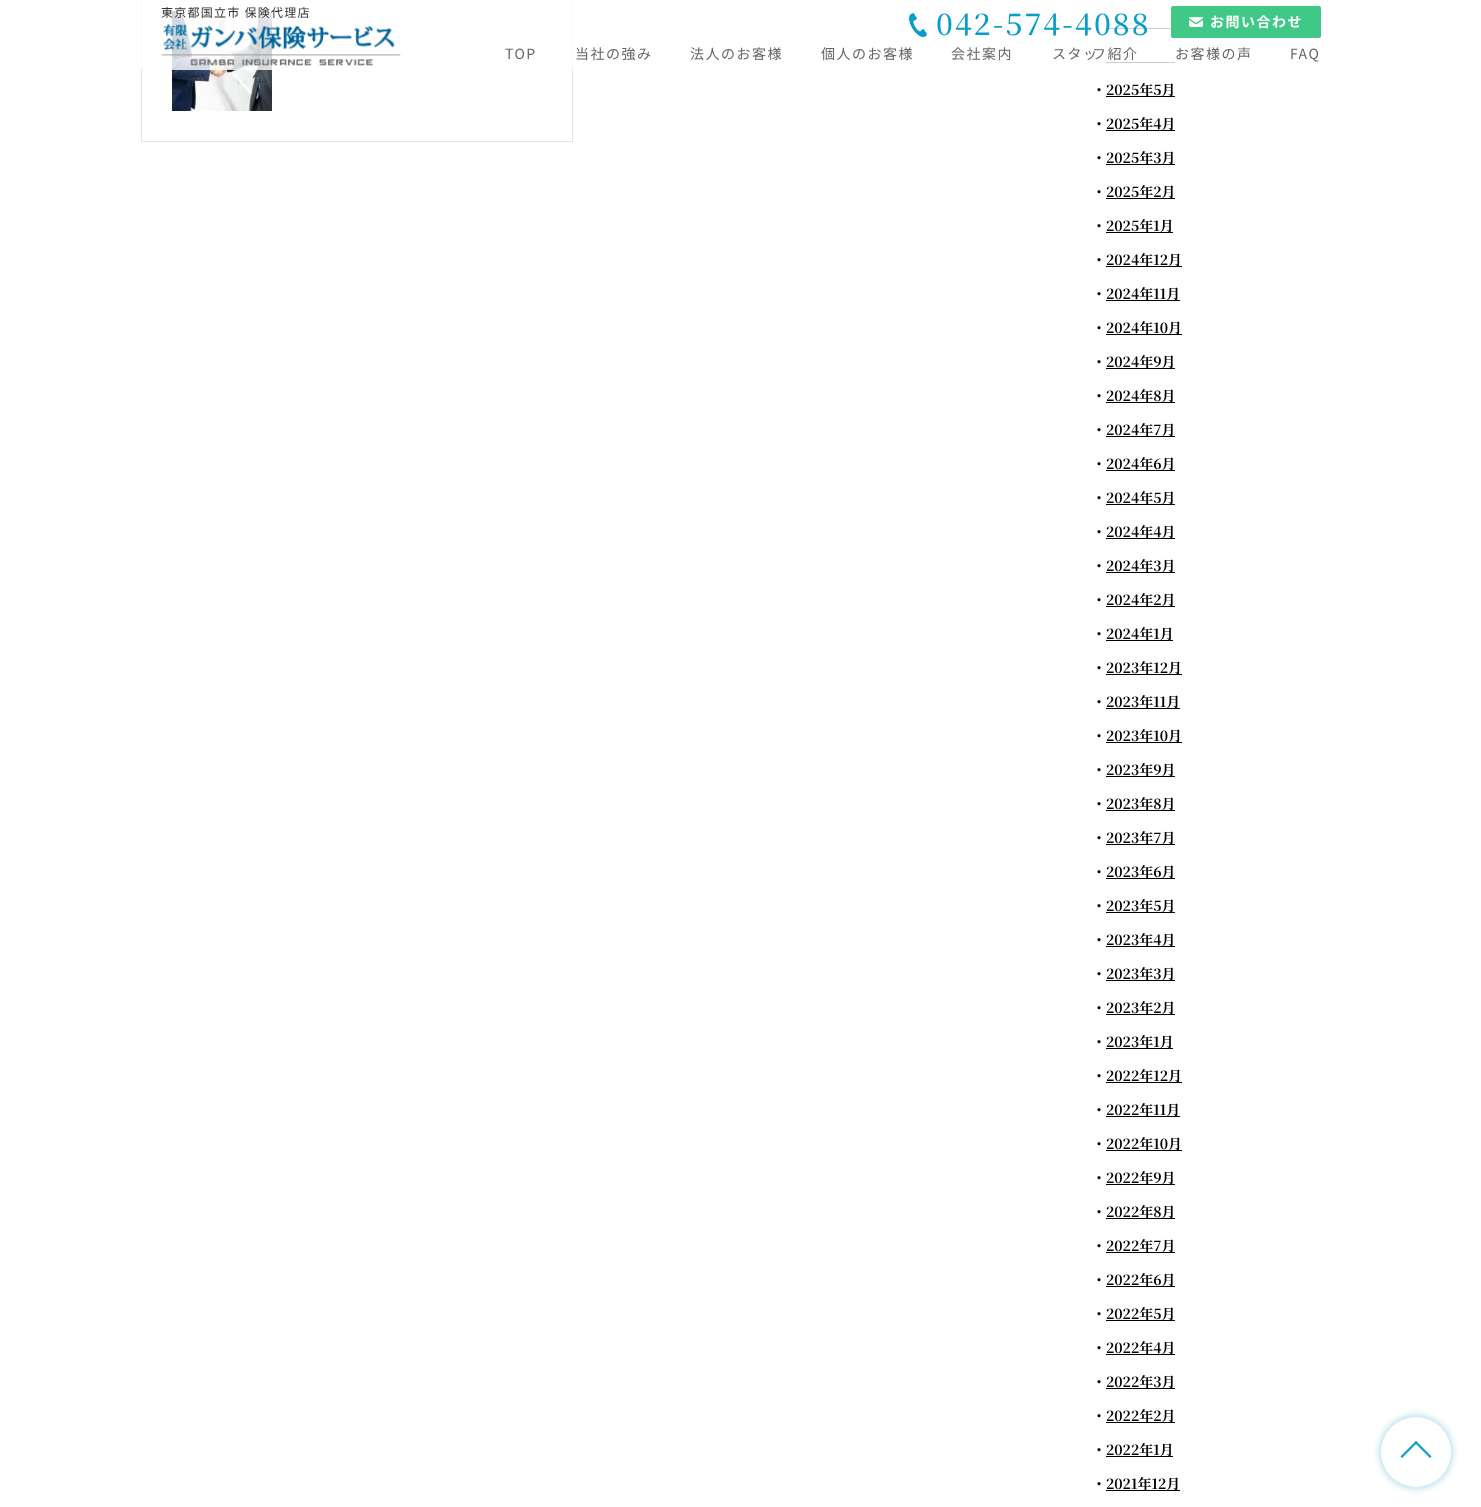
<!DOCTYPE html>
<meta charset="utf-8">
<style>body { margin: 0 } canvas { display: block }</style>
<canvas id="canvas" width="1481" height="1507"></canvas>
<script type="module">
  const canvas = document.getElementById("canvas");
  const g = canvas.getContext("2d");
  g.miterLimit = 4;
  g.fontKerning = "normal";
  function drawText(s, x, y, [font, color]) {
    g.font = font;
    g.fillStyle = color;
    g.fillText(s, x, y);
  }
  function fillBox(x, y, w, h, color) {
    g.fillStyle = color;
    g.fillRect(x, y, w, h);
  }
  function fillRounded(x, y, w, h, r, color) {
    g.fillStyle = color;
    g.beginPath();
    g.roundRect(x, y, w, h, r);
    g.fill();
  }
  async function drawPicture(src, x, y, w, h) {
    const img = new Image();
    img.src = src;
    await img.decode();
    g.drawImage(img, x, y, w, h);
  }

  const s1 = ["12px Noto Sans JP", "#333333"];
  const s2 = ["500 30px Noto Serif JP", "#059DC9"];
  const s3 = ["bold 14px Noto Sans JP", "#FFFFFF"];
  const s4 = ["14px Noto Sans JP", "#666666"];
  const s5 = ["bold 14px Noto Serif JP", "#000000"];

  fillBox(0, 0, 1481, 1507, "#FFFFFF");
  g.strokeStyle = "#E5E5E5";
  g.strokeRect(141.5, -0.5, 431, 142);
  await drawPicture("pic4.png", 172, 11, 100, 100);
  fillBox(1106, 28, 69, 1, "#000000");
  fillBox(1106, 62, 69, 1, "#000000");
  fillBox(141, 0, 1034, 70, "rgba(255, 255, 255, 0.8)");
  g.letterSpacing = "1.25px";
  drawText("東京都国立市 保険代理店", 161, 17, s1);
  await drawPicture("pic1.png", 161, 23, 240, 43);
  await drawPicture("pic2.png", 909, 13, 18, 24);
  g.letterSpacing = "2.1px";
  drawText("042-574-4088", 936, 35, s2);
  fillRounded(1171, 6, 150, 32, 2, "#40C886");
  await drawPicture("pic3.png", 1189, 17, 14, 10);
  g.letterSpacing = "1.5px";
  drawText("お問い合わせ", 1210, 27, s3);
  drawText("TOP", 505, 59, s4);
  drawText("当社の強み", 575, 59, s4);
  drawText("法人のお客様", 690, 59, s4);
  drawText("個人のお客様", 821, 59, s4);
  drawText("会社案内", 951, 59, s4);
  drawText("スタッ", 1052, 59, s4);
  drawText("フ紹介", 1092, 59, s4);
  drawText("お客様の声", 1175, 59, s4);
  drawText("FAQ", 1290, 59, s4);
  g.letterSpacing = "0px";
  drawText("・", 1092, 95, s5);
  fillBox(1106, 96, 69, 1, "#000000");
  drawText("2025年5月", 1106, 95, s5);
  drawText("・", 1092, 129, s5);
  fillBox(1106, 130, 69, 1, "#000000");
  drawText("2025年4月", 1106, 129, s5);
  drawText("・", 1092, 163, s5);
  fillBox(1106, 164, 69, 1, "#000000");
  drawText("2025年3月", 1106, 163, s5);
  drawText("・", 1092, 197, s5);
  fillBox(1106, 198, 69, 1, "#000000");
  drawText("2025年2月", 1106, 197, s5);
  drawText("・", 1092, 231, s5);
  fillBox(1106, 232, 67, 1, "#000000");
  drawText("2025年1月", 1106, 231, s5);
  drawText("・", 1092, 265, s5);
  fillBox(1106, 266, 76, 1, "#000000");
  drawText("2024年12月", 1106, 265, s5);
  drawText("・", 1092, 299, s5);
  fillBox(1106, 300, 74, 1, "#000000");
  drawText("2024年11月", 1106, 299, s5);
  drawText("・", 1092, 333, s5);
  fillBox(1106, 334, 76, 1, "#000000");
  drawText("2024年10月", 1106, 333, s5);
  drawText("・", 1092, 367, s5);
  fillBox(1106, 368, 69, 1, "#000000");
  drawText("2024年9月", 1106, 367, s5);
  drawText("・", 1092, 401, s5);
  fillBox(1106, 402, 69, 1, "#000000");
  drawText("2024年8月", 1106, 401, s5);
  drawText("・", 1092, 435, s5);
  fillBox(1106, 436, 69, 1, "#000000");
  drawText("2024年7月", 1106, 435, s5);
  drawText("・", 1092, 469, s5);
  fillBox(1106, 470, 69, 1, "#000000");
  drawText("2024年6月", 1106, 469, s5);
  drawText("・", 1092, 503, s5);
  fillBox(1106, 504, 69, 1, "#000000");
  drawText("2024年5月", 1106, 503, s5);
  drawText("・", 1092, 537, s5);
  fillBox(1106, 538, 69, 1, "#000000");
  drawText("2024年4月", 1106, 537, s5);
  drawText("・", 1092, 571, s5);
  fillBox(1106, 572, 69, 1, "#000000");
  drawText("2024年3月", 1106, 571, s5);
  drawText("・", 1092, 605, s5);
  fillBox(1106, 606, 69, 1, "#000000");
  drawText("2024年2月", 1106, 605, s5);
  drawText("・", 1092, 639, s5);
  fillBox(1106, 640, 67, 1, "#000000");
  drawText("2024年1月", 1106, 639, s5);
  drawText("・", 1092, 673, s5);
  fillBox(1106, 674, 76, 1, "#000000");
  drawText("2023年12月", 1106, 673, s5);
  drawText("・", 1092, 707, s5);
  fillBox(1106, 708, 74, 1, "#000000");
  drawText("2023年11月", 1106, 707, s5);
  drawText("・", 1092, 741, s5);
  fillBox(1106, 742, 76, 1, "#000000");
  drawText("2023年10月", 1106, 741, s5);
  drawText("・", 1092, 775, s5);
  fillBox(1106, 776, 69, 1, "#000000");
  drawText("2023年9月", 1106, 775, s5);
  drawText("・", 1092, 809, s5);
  fillBox(1106, 810, 69, 1, "#000000");
  drawText("2023年8月", 1106, 809, s5);
  drawText("・", 1092, 843, s5);
  fillBox(1106, 844, 69, 1, "#000000");
  drawText("2023年7月", 1106, 843, s5);
  drawText("・", 1092, 877, s5);
  fillBox(1106, 878, 69, 1, "#000000");
  drawText("2023年6月", 1106, 877, s5);
  drawText("・", 1092, 911, s5);
  fillBox(1106, 912, 69, 1, "#000000");
  drawText("2023年5月", 1106, 911, s5);
  drawText("・", 1092, 945, s5);
  fillBox(1106, 946, 69, 1, "#000000");
  drawText("2023年4月", 1106, 945, s5);
  drawText("・", 1092, 979, s5);
  fillBox(1106, 980, 69, 1, "#000000");
  drawText("2023年3月", 1106, 979, s5);
  drawText("・", 1092, 1013, s5);
  fillBox(1106, 1014, 69, 1, "#000000");
  drawText("2023年2月", 1106, 1013, s5);
  drawText("・", 1092, 1047, s5);
  fillBox(1106, 1048, 67, 1, "#000000");
  drawText("2023年1月", 1106, 1047, s5);
  drawText("・", 1092, 1081, s5);
  fillBox(1106, 1082, 76, 1, "#000000");
  drawText("2022年12月", 1106, 1081, s5);
  drawText("・", 1092, 1115, s5);
  fillBox(1106, 1116, 74, 1, "#000000");
  drawText("2022年11月", 1106, 1115, s5);
  drawText("・", 1092, 1149, s5);
  fillBox(1106, 1150, 76, 1, "#000000");
  drawText("2022年10月", 1106, 1149, s5);
  drawText("・", 1092, 1183, s5);
  fillBox(1106, 1184, 69, 1, "#000000");
  drawText("2022年9月", 1106, 1183, s5);
  drawText("・", 1092, 1217, s5);
  fillBox(1106, 1218, 69, 1, "#000000");
  drawText("2022年8月", 1106, 1217, s5);
  drawText("・", 1092, 1251, s5);
  fillBox(1106, 1252, 69, 1, "#000000");
  drawText("2022年7月", 1106, 1251, s5);
  drawText("・", 1092, 1285, s5);
  fillBox(1106, 1286, 69, 1, "#000000");
  drawText("2022年6月", 1106, 1285, s5);
  drawText("・", 1092, 1319, s5);
  fillBox(1106, 1320, 69, 1, "#000000");
  drawText("2022年5月", 1106, 1319, s5);
  drawText("・", 1092, 1353, s5);
  fillBox(1106, 1354, 69, 1, "#000000");
  drawText("2022年4月", 1106, 1353, s5);
  drawText("・", 1092, 1387, s5);
  fillBox(1106, 1388, 69, 1, "#000000");
  drawText("2022年3月", 1106, 1387, s5);
  drawText("・", 1092, 1421, s5);
  fillBox(1106, 1422, 69, 1, "#000000");
  drawText("2022年2月", 1106, 1421, s5);
  drawText("・", 1092, 1455, s5);
  fillBox(1106, 1456, 67, 1, "#000000");
  drawText("2022年1月", 1106, 1455, s5);
  drawText("・", 1092, 1489, s5);
  fillBox(1106, 1490, 74, 1, "#000000");
  drawText("2021年12月", 1106, 1489, s5);
  g.fillStyle = "#8ECEE5";
  g.filter = "blur(4px)";
  g.beginPath();
  g.roundRect(1381, 1417, 70, 70, 35);
  g.fill();
  g.filter = "none";
  g.fillStyle = "#FFFFFF";
  g.beginPath();
  g.arc(1416, 1452, 35, 0, Math.PI * 2);
  g.fill();
  g.fillStyle = "#059DC9";
  g.beginPath();
  g.moveTo(1402, 1458);
  g.lineTo(1400.5, 1456.5);
  g.lineTo(1416, 1441);
  g.lineTo(1417.5, 1442.5);
  g.closePath();
  g.fill();
  g.beginPath();
  g.moveTo(1430, 1458);
  g.lineTo(1414.5, 1442.5);
  g.lineTo(1416, 1441);
  g.lineTo(1431.5, 1456.5);
  g.closePath();
  g.fill();
</script>
